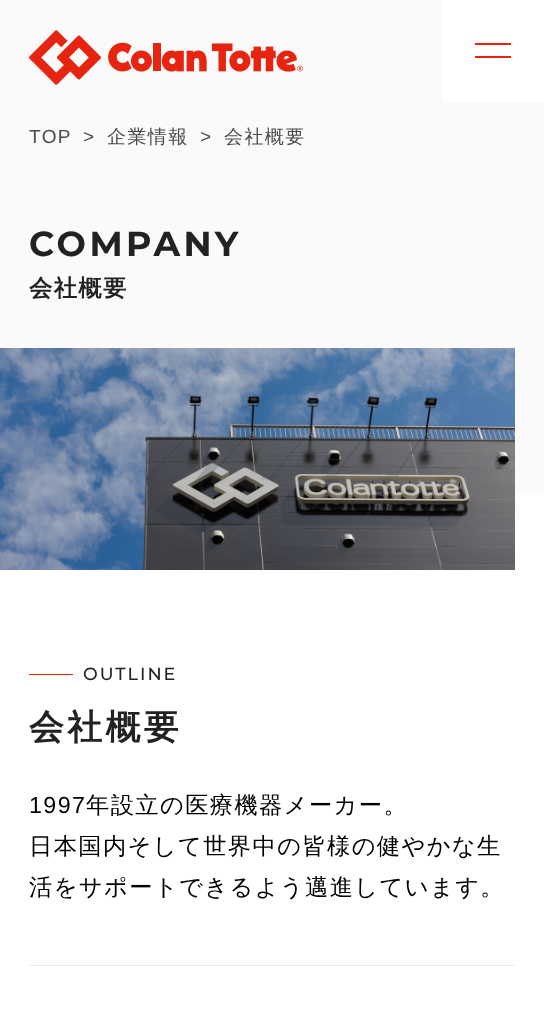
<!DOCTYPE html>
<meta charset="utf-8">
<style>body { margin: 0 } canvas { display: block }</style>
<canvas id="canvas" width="544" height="1019"></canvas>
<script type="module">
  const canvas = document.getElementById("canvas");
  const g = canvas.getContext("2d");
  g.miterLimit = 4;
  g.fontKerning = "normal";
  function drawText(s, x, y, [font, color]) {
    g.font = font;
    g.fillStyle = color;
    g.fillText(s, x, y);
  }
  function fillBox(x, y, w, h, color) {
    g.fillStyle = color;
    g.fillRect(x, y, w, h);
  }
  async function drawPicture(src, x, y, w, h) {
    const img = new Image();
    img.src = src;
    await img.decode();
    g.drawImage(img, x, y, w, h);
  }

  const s1 = ["19px Liberation Sans", "#4B4B4B"];
  const s2 = ["500 19px WenQuanYi Zen Hei", "#4B4B4B"];
  const s3 = ["bold 34.75px Montserrat", "#222222"];
  const s4 = ["bold 23.25px WenQuanYi Zen Hei", "#222222"];
  const s5 = ["500 17.5px Montserrat", "#222222"];
  const s6 = ["bold 34.75px WenQuanYi Zen Hei", "#222222"];
  const s7 = ["23.25px Liberation Sans", "#000000"];
  const s8 = ["500 23.25px WenQuanYi Zen Hei", "#000000"];

  fillBox(0, 0, 544, 1019, "#FFFFFF");
  fillBox(0, 0, 544, 493, "#FAFAFA");
  await drawPicture("pic1.png", 29, 30, 274, 55);
  fillBox(442, 0, 102, 102, "#FFFFFF");
  fillBox(475, 43, 36, 2, "#E72410");
  fillBox(475, 56, 36, 2, "#E72410");
  g.letterSpacing = "1.4px";
  drawText("TOP", 29, 143, s1);
  drawText(">", 83, 143, s1);
  drawText("企業情報", 107, 143, s2);
  drawText(">", 200, 143, s1);
  drawText("会社概要", 224, 143, s2);
  g.letterSpacing = "3.5px";
  drawText("COMPANY", 29, 256, s3);
  g.letterSpacing = "1.4px";
  drawText("会社概要", 29, 296, s4);
  await drawPicture("pic2.png", 0, 348, 515, 222);
  fillBox(29, 674, 44, 1, "#E72410");
  g.letterSpacing = "2px";
  drawText("OUTLINE", 83, 680, s5);
  g.letterSpacing = "3.5px";
  drawText("会社概要", 29, 739, s6);
  g.letterSpacing = "1.4px";
  drawText("1997", 29, 813, s7);
  drawText("年設立の医療機器メーカー。", 86, 813, s8);
  drawText("日本国内そして世界中の皆様の健やかな生", 29, 854, s8);
  drawText("活をサポートできるよう邁進しています。", 29, 895, s8);
  fillBox(29, 965, 486, 1, "#EBEBEB");
</script>
